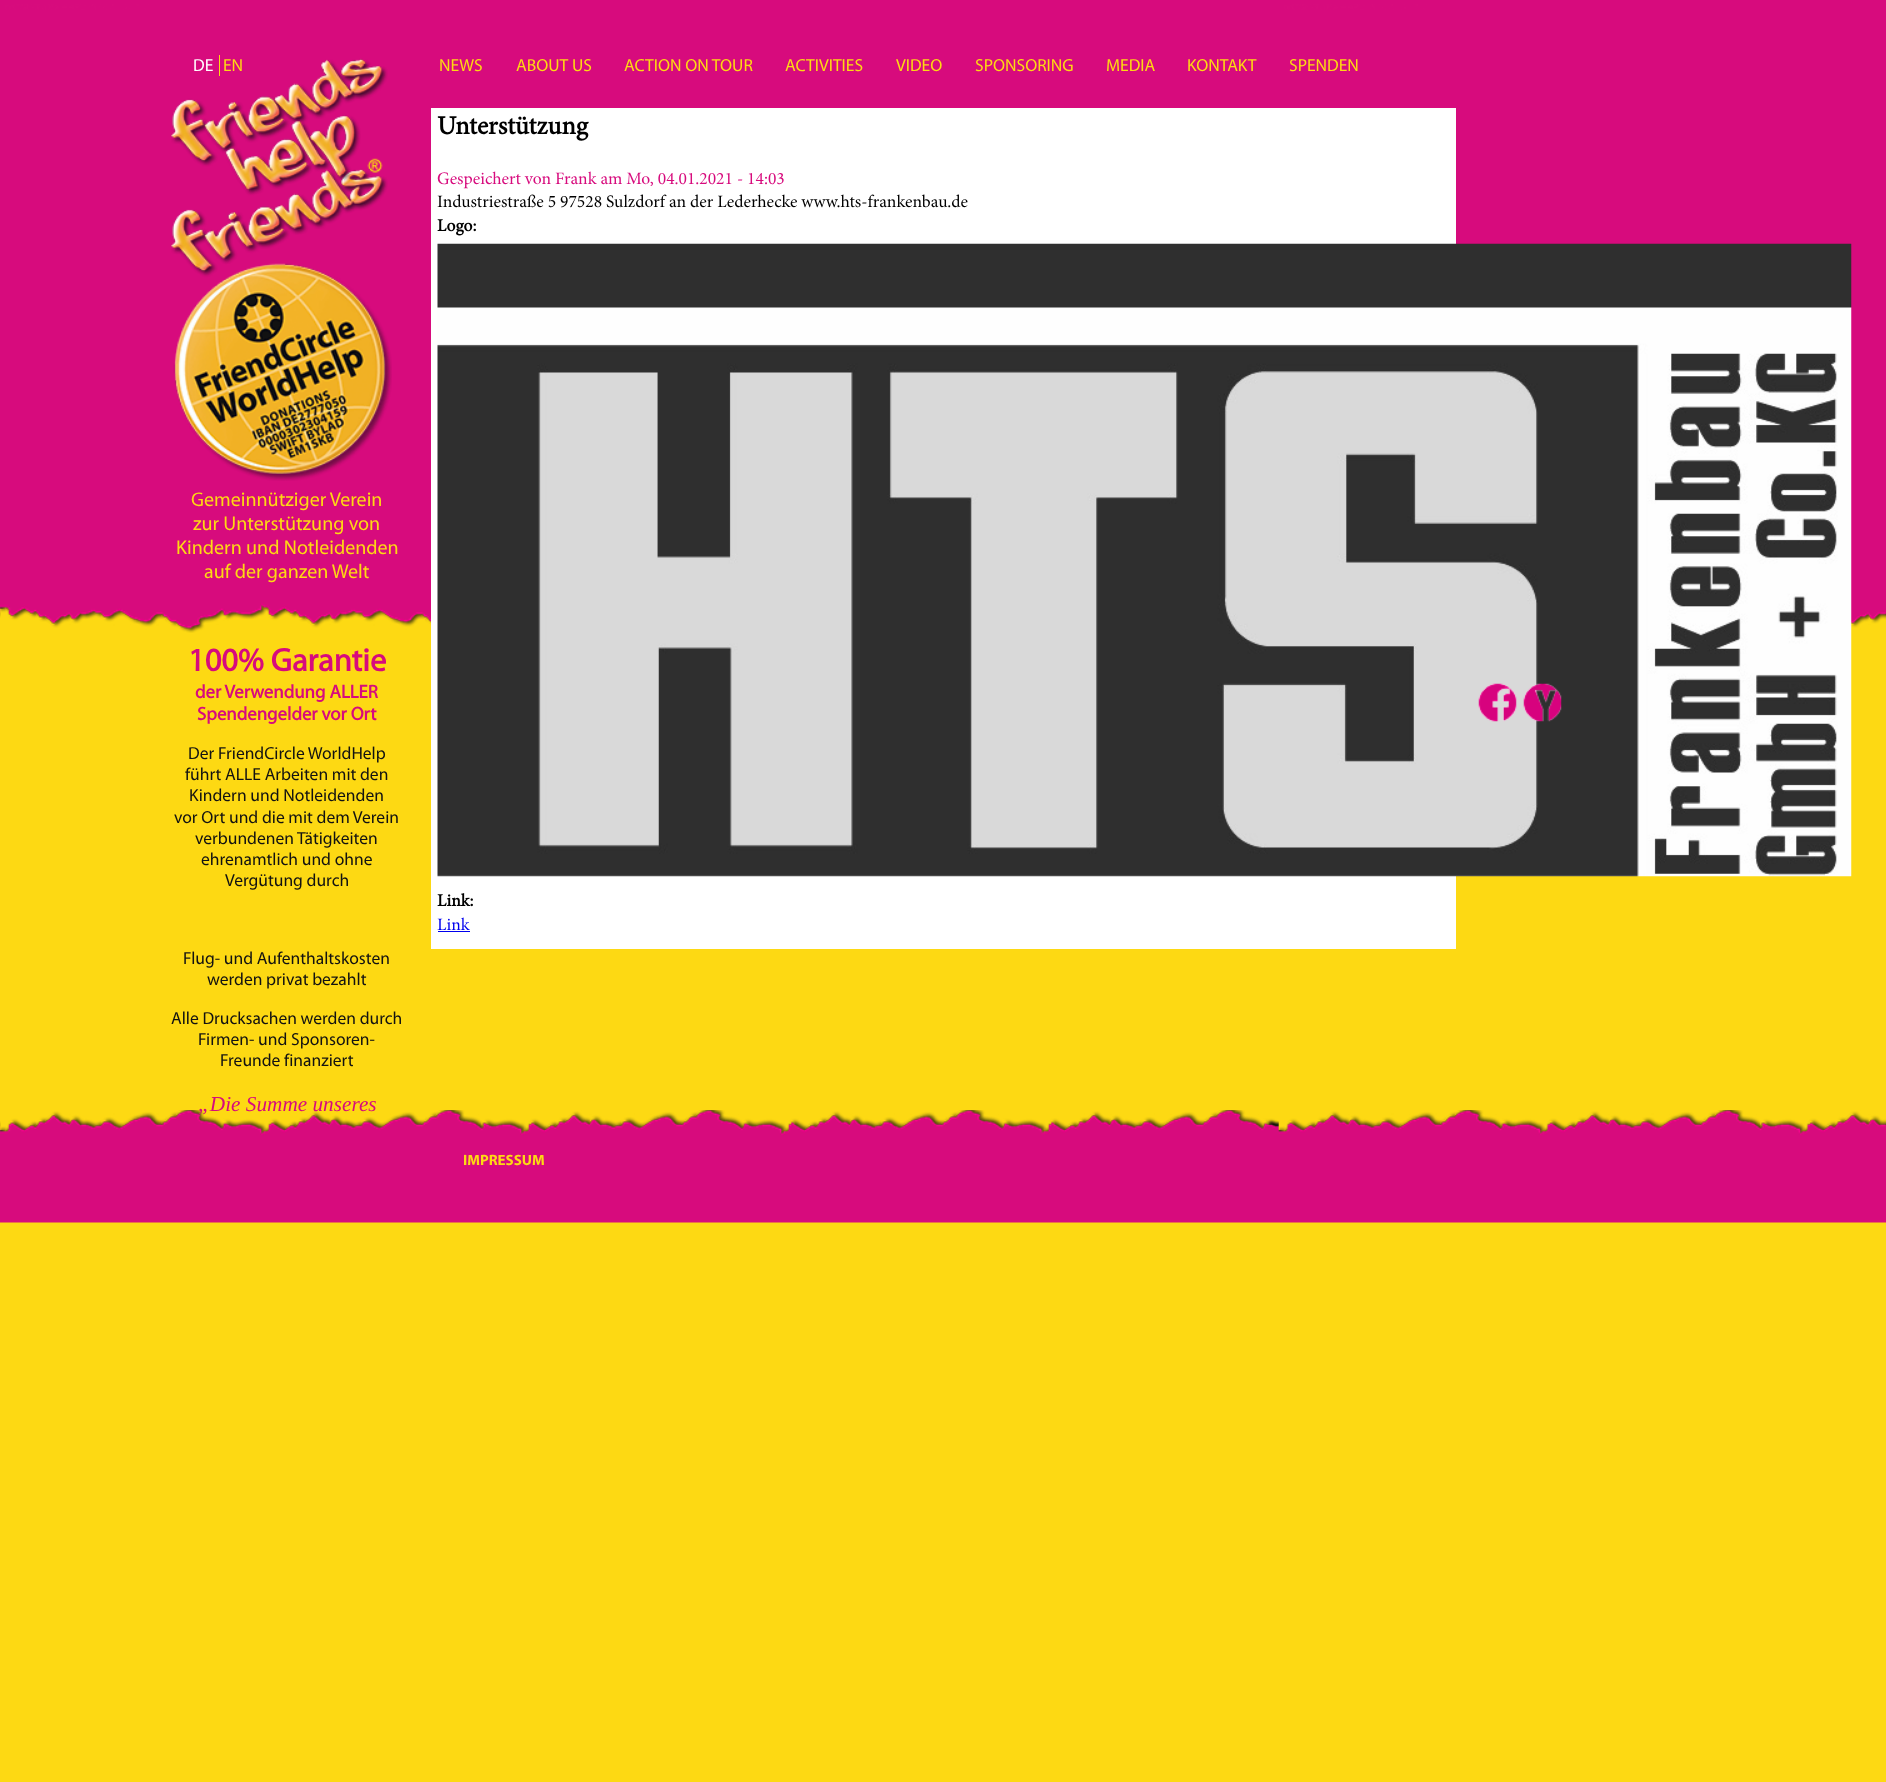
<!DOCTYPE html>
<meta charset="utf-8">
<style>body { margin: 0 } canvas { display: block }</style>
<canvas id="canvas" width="1886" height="1782"></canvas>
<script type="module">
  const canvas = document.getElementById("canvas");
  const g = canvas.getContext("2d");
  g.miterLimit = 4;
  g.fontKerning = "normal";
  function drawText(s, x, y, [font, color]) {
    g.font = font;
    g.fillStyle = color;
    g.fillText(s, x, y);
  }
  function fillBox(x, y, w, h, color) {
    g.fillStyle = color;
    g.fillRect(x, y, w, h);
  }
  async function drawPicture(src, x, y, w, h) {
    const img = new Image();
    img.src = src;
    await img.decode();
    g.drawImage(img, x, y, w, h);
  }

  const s1 = ["17.5px Myriad", "#FFFFFF"];
  const s2 = ["17.5px Myriad", "#FDD913"];
  const s3 = ["bold 26.25px Minion", "#000000"];
  const s4 = ["17.5px Minion", "#D70B7D"];
  const s5 = ["17.5px Minion", "#000000"];
  const s6 = ["bold 17.5px Minion", "#000000"];
  const s7 = ["17.5px Minion", "#0000EE"];
  const s8 = ["20px Myriad", "#FDD913"];
  const s9 = ["bold 32.5px 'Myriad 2'", "#D70B7D"];
  const s10 = ["bold 18.75px 'Myriad 2'", "#D70B7D"];
  const s11 = ["17.5px Myriad", "#121212"];
  const s12 = ["italic 21.25px Liberation Serif", "#D70B7D"];
  const s13 = ["bold 15px Myriad", "#FDD913"];

  fillBox(0, 0, 1886, 1782, "#FDD913");
  await drawPicture("pic1.png", 0, 0, 1886, 633);
  await drawPicture("pic3.png", 171, 58, 221, 423);
  drawText("DE", 193, 71, s1);
  fillBox(219, 55, 1, 21, "#FDD913");
  drawText("EN", 223, 71, s2);
  drawText("NEWS", 439, 71, s2);
  drawText("ABOUT US", 516, 71, s2);
  drawText("ACTION ON TOUR", 624, 71, s2);
  drawText("ACTIVITIES", 785, 71, s2);
  drawText("VIDEO", 896, 71, s2);
  drawText("SPONSORING", 975, 71, s2);
  drawText("MEDIA", 1106, 71, s2);
  drawText("KONTAKT", 1187, 71, s2);
  drawText("SPENDEN", 1289, 71, s2);
  fillBox(431, 108, 1025, 841, "#FFFFFF");
  drawText("Unterstützung", 437, 134, s3);
  drawText("Gespeichert von Frank am Mo, 04.01.2021 - 14:03", 437, 184, s4);
  drawText("Industriestraße 5 97528 Sulzdorf an der Lederhecke www.hts-frankenbau.de", 437, 207, s5);
  drawText("Logo:", 437, 231, s6);
  await drawPicture("pic2.png", 437, 243, 1415, 634);
  drawText("Link:", 437, 906, s6);
  drawText("Link", 437, 930, s7);
  fillBox(438, 931, 32, 1, "#0000EE");
  drawText("Gemeinnütziger Verein", 191, 506, s8);
  drawText("zur Unterstützung von", 193, 530, s8);
  drawText("Kindern und Notleidenden", 176, 554, s8);
  drawText("auf der ganzen Welt", 204, 578, s8);
  drawText("100% Garantie", 188, 671, s9);
  drawText("der Verwendung ALLER", 195, 698, s10);
  drawText("Spendengelder vor Ort", 197, 720, s10);
  drawText("Der FriendCircle WorldHelp", 188, 759, s11);
  drawText("führt ALLE Arbeiten mit den", 185, 780, s11);
  drawText("Kindern und Notleidenden", 189, 801, s11);
  drawText("vor Ort und die mit dem Verein", 174, 823, s11);
  drawText("verbundenen Tätigkeiten", 195, 844, s11);
  drawText("ehrenamtlich und ohne", 201, 865, s11);
  drawText("Vergütung durch", 225, 886, s11);
  drawText("Flug- und Aufenthaltskosten", 183, 964, s11);
  drawText("werden privat bezahlt", 207, 985, s11);
  drawText("Alle Drucksachen werden durch", 171, 1024, s11);
  drawText("Firmen- und Sponsoren-", 198, 1045, s11);
  drawText("Freunde finanziert", 220, 1066, s11);
  await drawPicture("pic6.png", 0, 1110, 1886, 113);
  drawText("„Die Summe unseres", 198, 1111, s12);
  await drawPicture("pic4.png", 1478, 683, 39, 39);
  await drawPicture("pic5.png", 1523, 683, 39, 39);
  drawText("IMPRESSUM", 463, 1165, s13);
</script>
